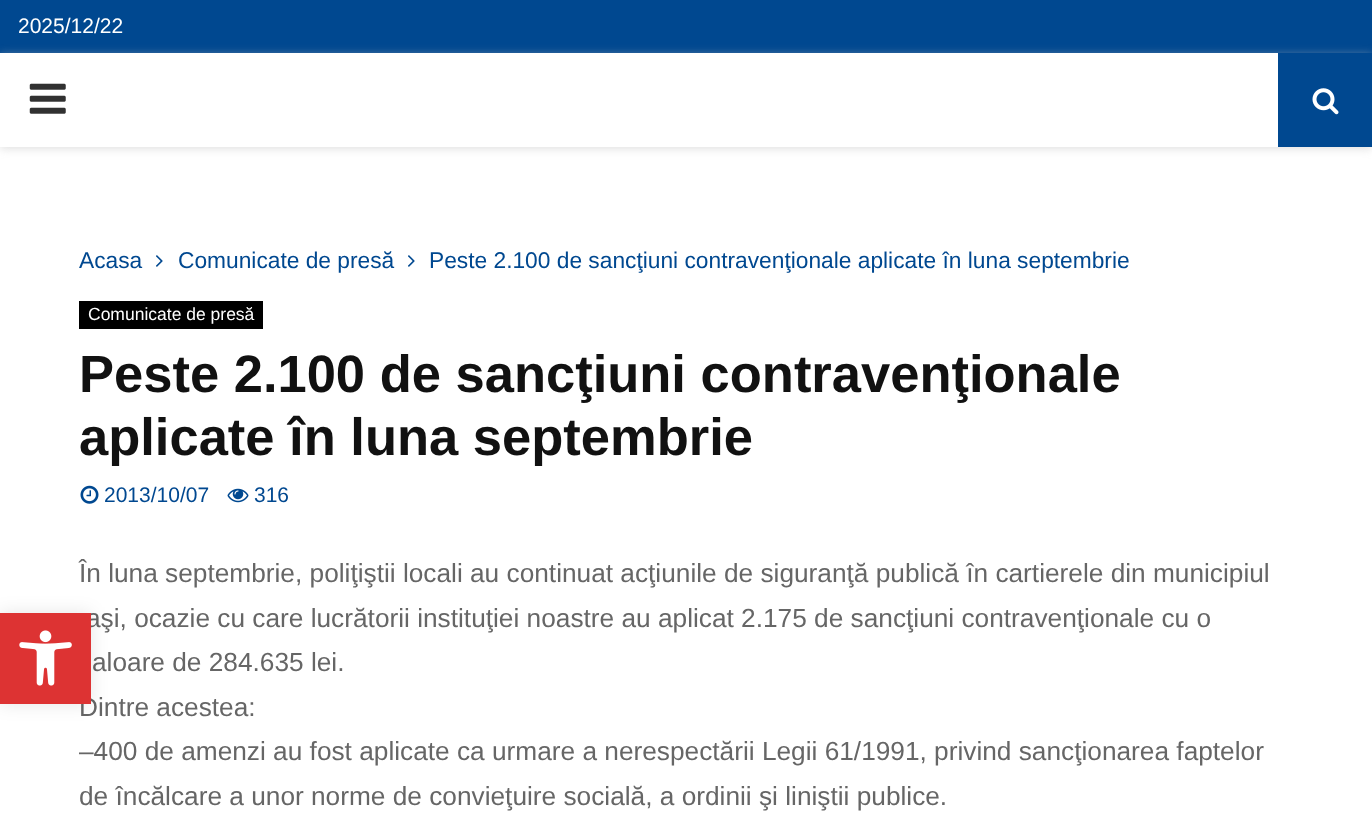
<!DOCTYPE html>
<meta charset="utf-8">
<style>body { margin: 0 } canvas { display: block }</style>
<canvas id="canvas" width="1372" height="831"></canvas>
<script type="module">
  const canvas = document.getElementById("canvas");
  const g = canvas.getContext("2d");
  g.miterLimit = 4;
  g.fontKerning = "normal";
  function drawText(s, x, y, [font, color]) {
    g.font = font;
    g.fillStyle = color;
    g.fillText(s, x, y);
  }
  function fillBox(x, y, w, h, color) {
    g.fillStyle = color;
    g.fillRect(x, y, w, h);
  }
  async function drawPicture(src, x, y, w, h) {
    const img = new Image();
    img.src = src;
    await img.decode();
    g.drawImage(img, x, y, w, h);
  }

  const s1 = ["21px Liberation Sans", "#FFFFFF"];
  const s2 = ["22.75px Liberation Sans", "#004890"];
  const s3 = ["17.5px Liberation Sans", "#FFFFFF"];
  const s4 = ["bold 52.5px Liberation Sans", "#111111"];
  const s5 = ["21px Liberation Sans", "#004890"];
  const s6 = ["26.25px Liberation Sans", "#666666"];

  fillBox(0, 0, 1372, 831, "#FFFFFF");
  fillBox(0, 0, 1372, 53, "#004890");
  drawText("2025/12/22", 18, 33, s1);
  g.save();
  g.beginPath();
  g.moveTo(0, 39);
  g.lineTo(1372, 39);
  g.lineTo(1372, 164);
  g.lineTo(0, 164);
  g.closePath();
  g.moveTo(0, 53);
  g.lineTo(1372, 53);
  g.lineTo(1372, 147);
  g.lineTo(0, 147);
  g.closePath();
  g.clip("evenodd");
  g.fillStyle = "rgba(190, 190, 190, 0.46)";
  g.filter = "blur(4.5px)";
  g.beginPath();
  g.rect(0, 54, 1372, 95);
  g.fill();
  g.filter = "none";
  g.restore();
  await drawPicture("pic1.png", 29, 83, 37, 31);
  fillBox(1278, 53, 94, 94, "#004890");
  await drawPicture("pic2.png", 1312, 88, 27, 27);
  drawText("Acasa", 79, 268, s2);
  await drawPicture("pic3.png", 156, 255, 7, 12);
  drawText("Comunicate de presă", 178, 268, s2);
  await drawPicture("pic3.png", 408, 255, 7, 12);
  drawText("Peste 2.100 de sancţiuni contravenţionale aplicate în luna septembrie", 429, 268, s2);
  fillBox(79, 301, 184, 28, "#000000");
  drawText("Comunicate de presă", 88, 320, s3);
  drawText("Peste 2.100 de sancţiuni contravenţionale", 79, 392, s4);
  drawText("aplicate în luna septembrie", 79, 455, s4);
  await drawPicture("pic4.png", 80, 485, 19, 19);
  drawText("2013/10/07", 104, 502, s5);
  await drawPicture("pic5.png", 227, 488, 22, 15);
  drawText("316", 254, 502, s5);
  drawText("În luna septembrie, poliţiştii locali au continuat acţiunile de siguranţă publică în cartierele din municipiul", 79, 582, s6);
  drawText("aşi, ocazie cu care lucrătorii instituţiei noastre au aplicat 2.175 de sancţiuni contravenţionale cu o", 86, 627, s6);
  drawText("aloare de 284.635 lei.", 92, 671, s6);
  drawText("Dintre acestea:", 79, 716, s6);
  drawText("–400 de amenzi au fost aplicate ca urmare a nerespectării Legii 61/1991, privind sancţionarea faptelor", 79, 760, s6);
  drawText("de încălcare a unor norme de convieţuire socială, a ordinii şi liniştii publice.", 79, 805, s6);
  g.fillStyle = "rgba(0, 0, 0, 0.1)";
  g.filter = "blur(9px)";
  g.beginPath();
  g.rect(0, 613, 91, 91);
  g.fill();
  g.filter = "none";
  fillBox(0, 613, 91, 91, "#DD3333");
  await drawPicture("pic6.png", 19, 630, 53, 56);
</script>
